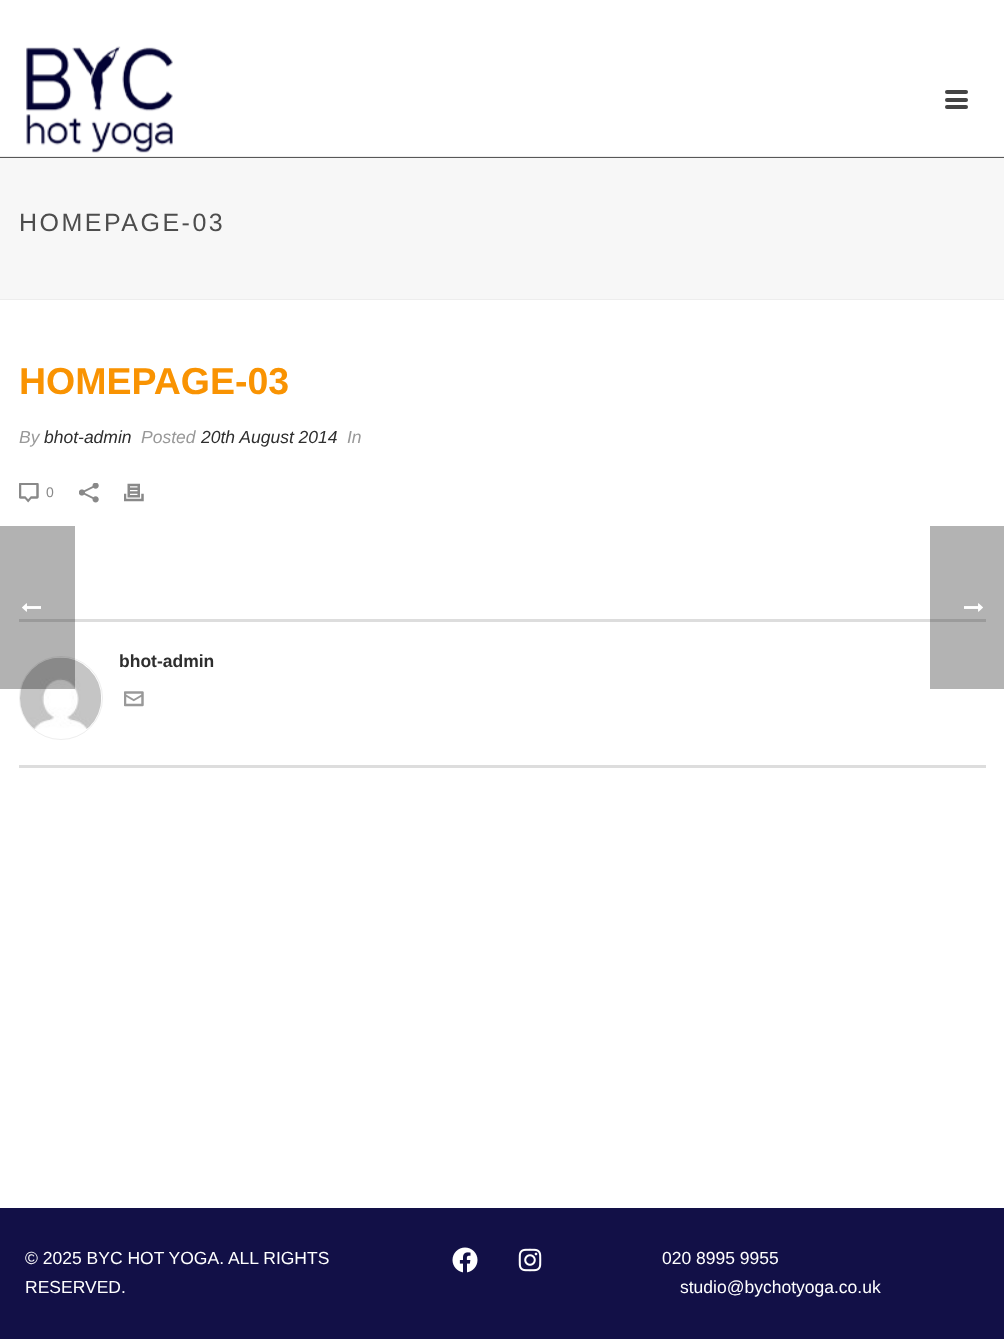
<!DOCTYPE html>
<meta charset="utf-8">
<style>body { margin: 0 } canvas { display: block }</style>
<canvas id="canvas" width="1004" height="1339"></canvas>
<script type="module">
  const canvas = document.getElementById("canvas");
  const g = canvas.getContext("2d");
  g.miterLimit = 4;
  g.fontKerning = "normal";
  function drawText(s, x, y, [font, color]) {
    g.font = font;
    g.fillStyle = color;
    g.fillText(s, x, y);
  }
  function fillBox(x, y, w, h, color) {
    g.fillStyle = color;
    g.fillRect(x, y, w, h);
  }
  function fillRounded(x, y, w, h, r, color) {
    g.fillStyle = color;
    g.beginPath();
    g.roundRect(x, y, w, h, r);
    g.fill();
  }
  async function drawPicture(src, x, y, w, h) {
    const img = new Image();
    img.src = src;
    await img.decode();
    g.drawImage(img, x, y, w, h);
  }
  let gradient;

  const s1 = ["25px Liberation Sans", "#4D4D4D"];
  const s2 = ["bold 37.5px Liberation Sans", "#F99302"];
  const s3 = ["italic 17.5px Liberation Sans", "#999999"];
  const s4 = ["italic 17.5px Liberation Sans", "#2E2E2E"];
  const s5 = ["14px Liberation Sans", "#898989"];
  const s6 = ["bold 17.5px Liberation Sans", "#2E2E2E"];
  const s7 = ["17.5px Liberation Sans", "#FFFFFF"];

  fillBox(0, 0, 1004, 1339, "#FFFFFF");
  fillBox(930, 526, 74, 163, "#B3B3B3");
  fillBox(0, 158, 1004, 141, "#F7F7F7");
  fillBox(0, 299, 1004, 1, "#EDEDED");
  gradient = g.createLinearGradient(503, 156, 503, 269);
  gradient.addColorStop(0, "#565656");
  gradient.addColorStop(1, "#F7F7F7");
  g.fillStyle = gradient;
  g.fillRect(0, 157, 1004, 1);
  fillBox(0, 156, 1004, 1, "#EDEDED");
  await drawPicture("pic1.png", 26, 46, 147, 107);
  fillRounded(945, 90, 23, 4, 2, "#444444");
  fillRounded(945, 98, 23, 4, 2, "#444444");
  fillRounded(945, 105, 23, 4, 2, "#444444");
  g.letterSpacing = "2.5px";
  drawText("HOMEPAGE-03", 19, 231, s1);
  g.letterSpacing = "0px";
  drawText("HOMEPAGE-03", 19, 394, s2);
  drawText("By", 19, 443, s3);
  drawText("bhot-admin", 44, 443, s4);
  drawText("Posted", 141, 443, s3);
  drawText("20th August 2014", 201, 443, s4);
  drawText("In", 347, 443, s3);
  await drawPicture("pic2.png", 19, 483, 20, 20);
  drawText("0", 46, 497, s5);
  await drawPicture("pic3.png", 79, 483, 20, 20);
  await drawPicture("pic4.png", 124, 483, 20, 19);
  fillBox(19, 619, 911, 3, "#DDDDDD");
  fillBox(930, 619, 56, 3, "#9B9B9B");
  fillBox(19, 765, 967, 3, "#DDDDDD");
  g.beginPath();
  g.arc(61, 698, 41.5, 0, Math.PI * 2);
  g.strokeStyle = "#EEEEEE";
  g.stroke();
  await drawPicture("pic5.png", 20, 657, 81, 72);
  drawText("bhot-admin", 119, 667, s6);
  await drawPicture("pic6.png", 124, 691, 20, 16);
  fillBox(0, 1208, 1004, 131, "#121047");
  drawText("© 2025 BYC HOT YOGA. ALL RIGHTS", 25, 1264, s7);
  drawText("RESERVED.", 25, 1293, s7);
  await drawPicture("pic7.png", 452, 1247, 26, 26);
  await drawPicture("pic8.png", 518, 1248, 24, 24);
  drawText("020 8995 9955", 662, 1264, s7);
  drawText("studio@bychotyoga.co.uk", 680, 1293, s7);
  fillBox(0, 526, 75, 163, "rgba(0, 0, 0, 0.3)");
  await drawPicture("pic9.png", 22, 603, 19, 9);
  await drawPicture("pic10.png", 964, 603, 19, 9);
</script>
